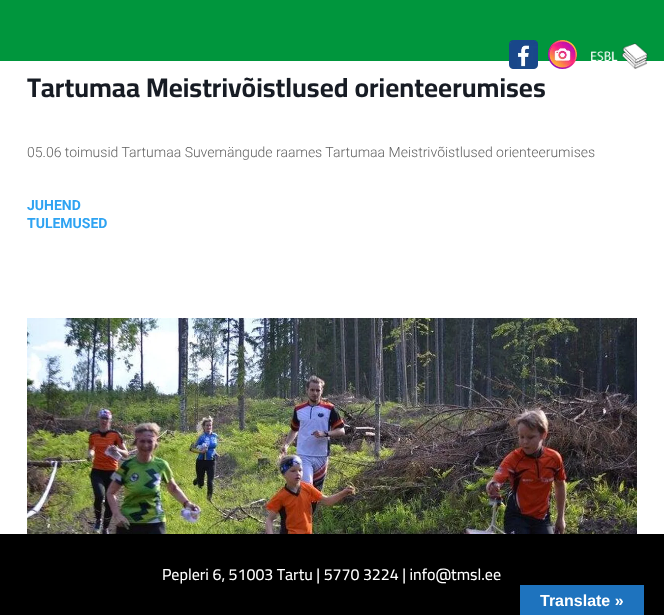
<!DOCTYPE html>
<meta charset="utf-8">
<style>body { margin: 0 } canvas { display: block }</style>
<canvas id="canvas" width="664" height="615"></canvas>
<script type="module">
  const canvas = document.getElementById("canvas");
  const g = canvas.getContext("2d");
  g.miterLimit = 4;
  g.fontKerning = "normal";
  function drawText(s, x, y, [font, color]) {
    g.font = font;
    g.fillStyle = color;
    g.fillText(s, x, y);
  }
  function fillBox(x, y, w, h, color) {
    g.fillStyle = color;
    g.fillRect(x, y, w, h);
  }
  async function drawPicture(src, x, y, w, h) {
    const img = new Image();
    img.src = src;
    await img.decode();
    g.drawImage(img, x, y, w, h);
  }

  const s1 = ["bold 27px Cairo", "#171C24"];
  const s2 = ["300 14px Roboto", "#616161"];
  const s3 = ["bold 14px Roboto", "#2EA3F2"];
  const s4 = ["500 16px Cairo", "#FFFFFF"];
  const s5 = ["bold 16px Liberation Sans", "#FFFFFF"];

  fillBox(0, 0, 664, 615, "#FFFFFF");
  fillBox(0, 0, 664, 61, "#00963D");
  await drawPicture("pic1.png", 509, 40, 29, 29);
  await drawPicture("pic2.png", 548, 40, 29, 29);
  await drawPicture("pic3.png", 591, 43, 57, 26);
  drawText("Tartumaa Meistrivõistlused orienteerumises", 27, 97, s1);
  drawText("05.06 toimusid Tartumaa Suvemängude raames Tartumaa Meistrivõistlused orienteerumises", 27, 157, s2);
  drawText("JUHEND", 27, 210, s3);
  drawText("TULEMUSED", 27, 228, s3);
  await drawPicture("pic4.png", 27, 318, 610, 216);
  fillBox(0, 534, 664, 81, "#000000");
  drawText("Pepleri 6, 51003 Tartu | 5770 3224 | info@tmsl.ee", 162, 580, s4);
  fillBox(520, 585, 124, 30, "#1E73BE");
  drawText("Translate »", 540, 606, s5);
</script>
